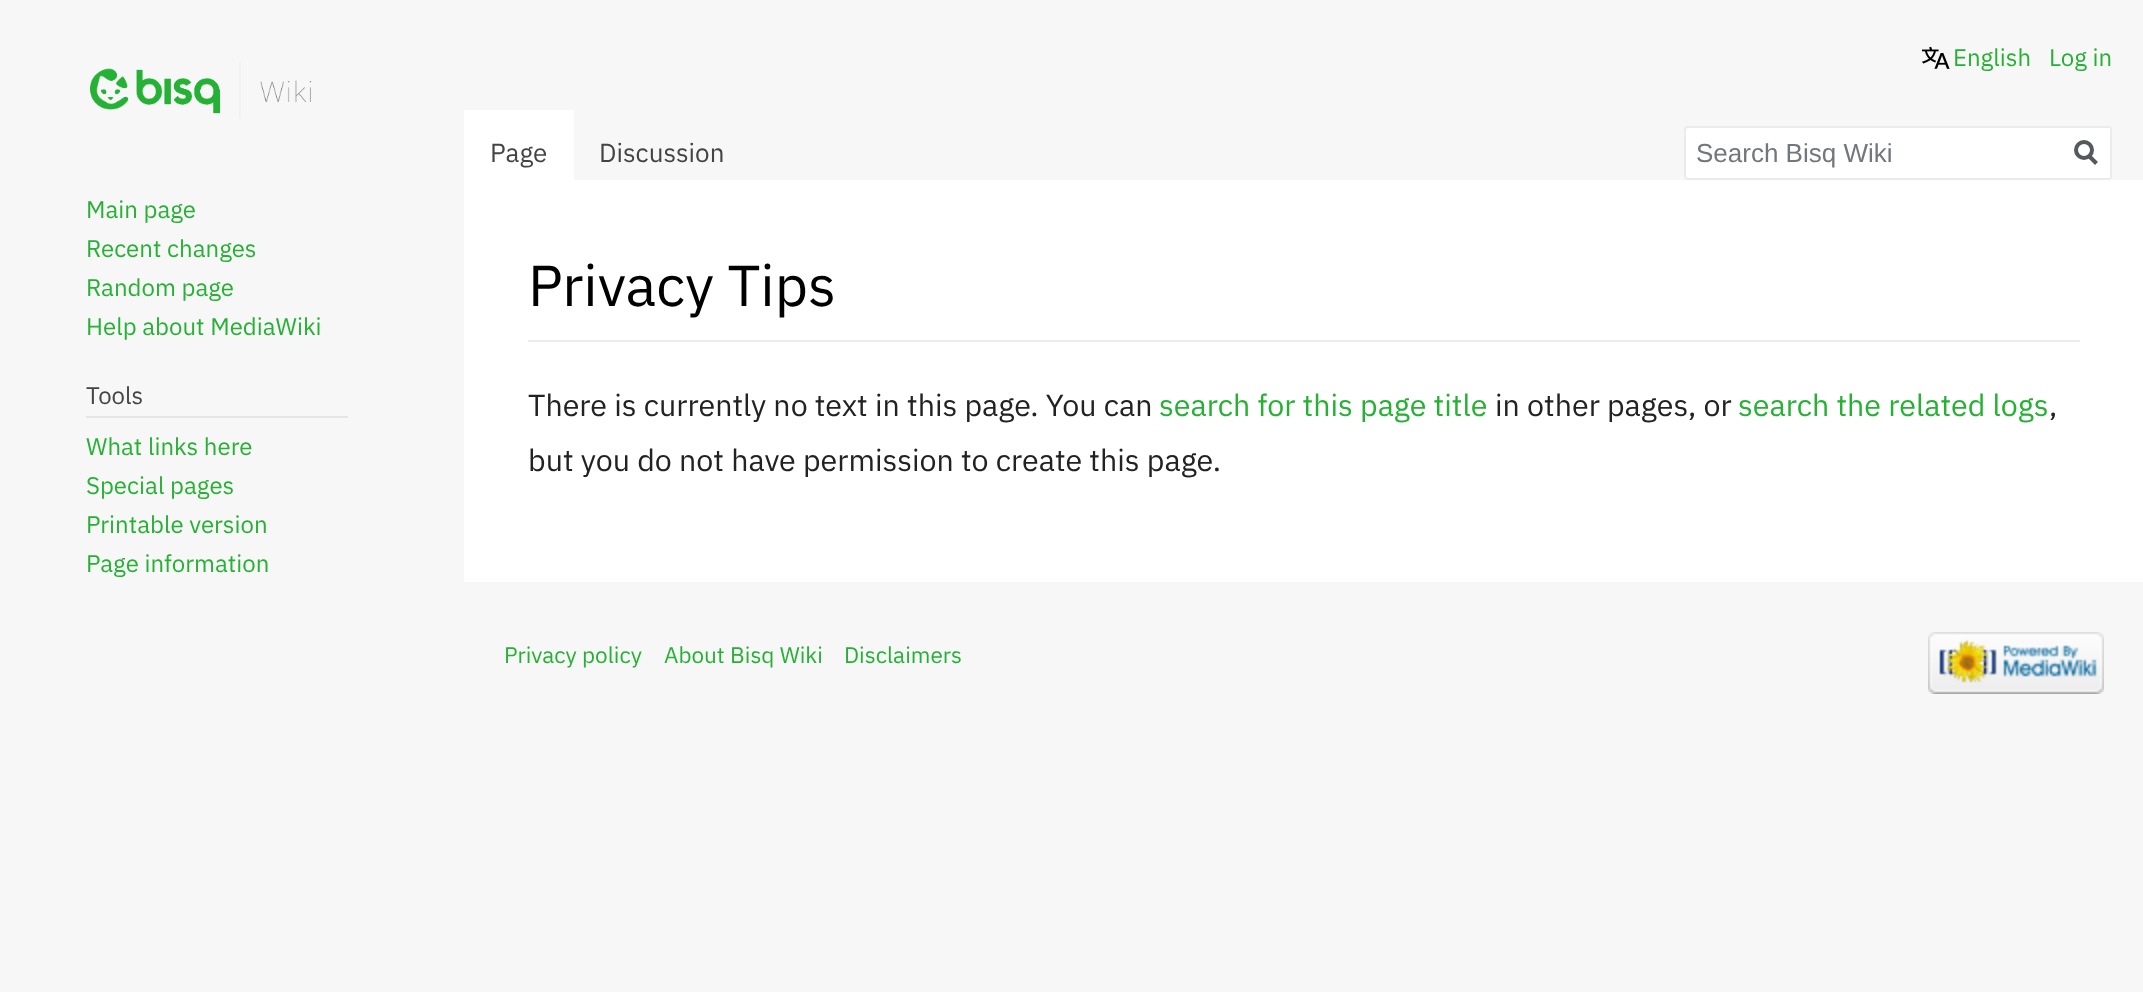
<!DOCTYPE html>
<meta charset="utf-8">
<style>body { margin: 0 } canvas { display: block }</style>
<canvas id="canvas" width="2143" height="992"></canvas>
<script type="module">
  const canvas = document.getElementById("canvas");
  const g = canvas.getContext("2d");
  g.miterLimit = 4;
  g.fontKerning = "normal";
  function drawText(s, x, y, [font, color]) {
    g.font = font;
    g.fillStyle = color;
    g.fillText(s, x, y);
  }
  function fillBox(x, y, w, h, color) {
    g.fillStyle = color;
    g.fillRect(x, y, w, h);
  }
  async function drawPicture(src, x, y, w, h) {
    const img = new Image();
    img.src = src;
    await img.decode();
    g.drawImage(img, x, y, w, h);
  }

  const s1 = ["24px IBM Plex Sans", "#26B135"];
  const s2 = ["26px IBM Plex Sans", "#444444"];
  const s3 = ["26px Liberation Sans", "#72777D"];
  const s4 = ["24px IBM Plex Sans", "#444444"];
  const s5 = ["57.5px IBM Plex Sans", "#000000"];
  const s6 = ["30.4px IBM Plex Sans", "#222222"];
  const s7 = ["30.4px IBM Plex Sans", "#26B135"];
  const s8 = ["22.5px IBM Plex Sans", "#26B135"];

  fillBox(0, 0, 2143, 992, "#F7F7F7");
  await drawPicture("pic1.png", 1922, 46, 28, 23);
  drawText("English", 1953, 66, s1);
  drawText("Log in", 2049, 66, s1);
  fillBox(464, 110, 110, 70, "#FFFFFF");
  drawText("Page", 490, 162, s2);
  drawText("Discussion", 599, 162, s2);
  g.fillStyle = "#FFFFFF";
  g.beginPath();
  g.roundRect(1685, 127, 426, 52, 3);
  g.fill();
  g.strokeStyle = "#EBEBEB";
  g.lineWidth = 2;
  g.stroke();
  drawText("Search Bisq Wiki", 1696, 162, s3);
  fillBox(2109, 128, 1, 50, "#FFFFFF");
  g.beginPath();
  g.moveTo(2096.5, 163.5);
  g.lineTo(2088.5, 155.5);
  g.strokeStyle = "#54595D";
  g.lineWidth = 4;
  g.stroke();
  g.beginPath();
  g.arc(2084, 150, 8, 0, Math.PI * 2);
  g.stroke();
  await drawPicture("pic2.png", 90, 62, 222, 56);
  drawText("Main page", 86, 218, s1);
  drawText("Recent changes", 86, 257, s1);
  drawText("Random page", 86, 296, s1);
  drawText("Help about MediaWiki", 86, 335, s1);
  fillBox(86, 416, 262, 2, "#E5E5E5");
  drawText("Tools", 86, 404, s4);
  drawText("What links here", 86, 455, s1);
  drawText("Special pages", 86, 494, s1);
  drawText("Printable version", 86, 533, s1);
  drawText("Page information", 86, 572, s1);
  fillBox(464, 180, 1679, 402, "#FFFFFF");
  fillBox(528, 340, 1552, 2, "#ECECEC");
  drawText("Privacy Tips", 528, 306, s5);
  drawText("There is currently no text in this page. You can", 528, 416, s6);
  drawText("search for this page title", 1159, 416, s7);
  drawText("in other pages, or", 1495, 416, s6);
  drawText("search the related logs", 1738, 416, s7);
  drawText(",", 2049, 416, s6);
  drawText("but you do not have permission to create this page.", 528, 471, s6);
  drawText("Privacy policy", 504, 663, s8);
  drawText("About Bisq Wiki", 664, 663, s8);
  drawText("Disclaimers", 844, 663, s8);
  await drawPicture("pic3.png", 1928, 632, 176, 62);
</script>
